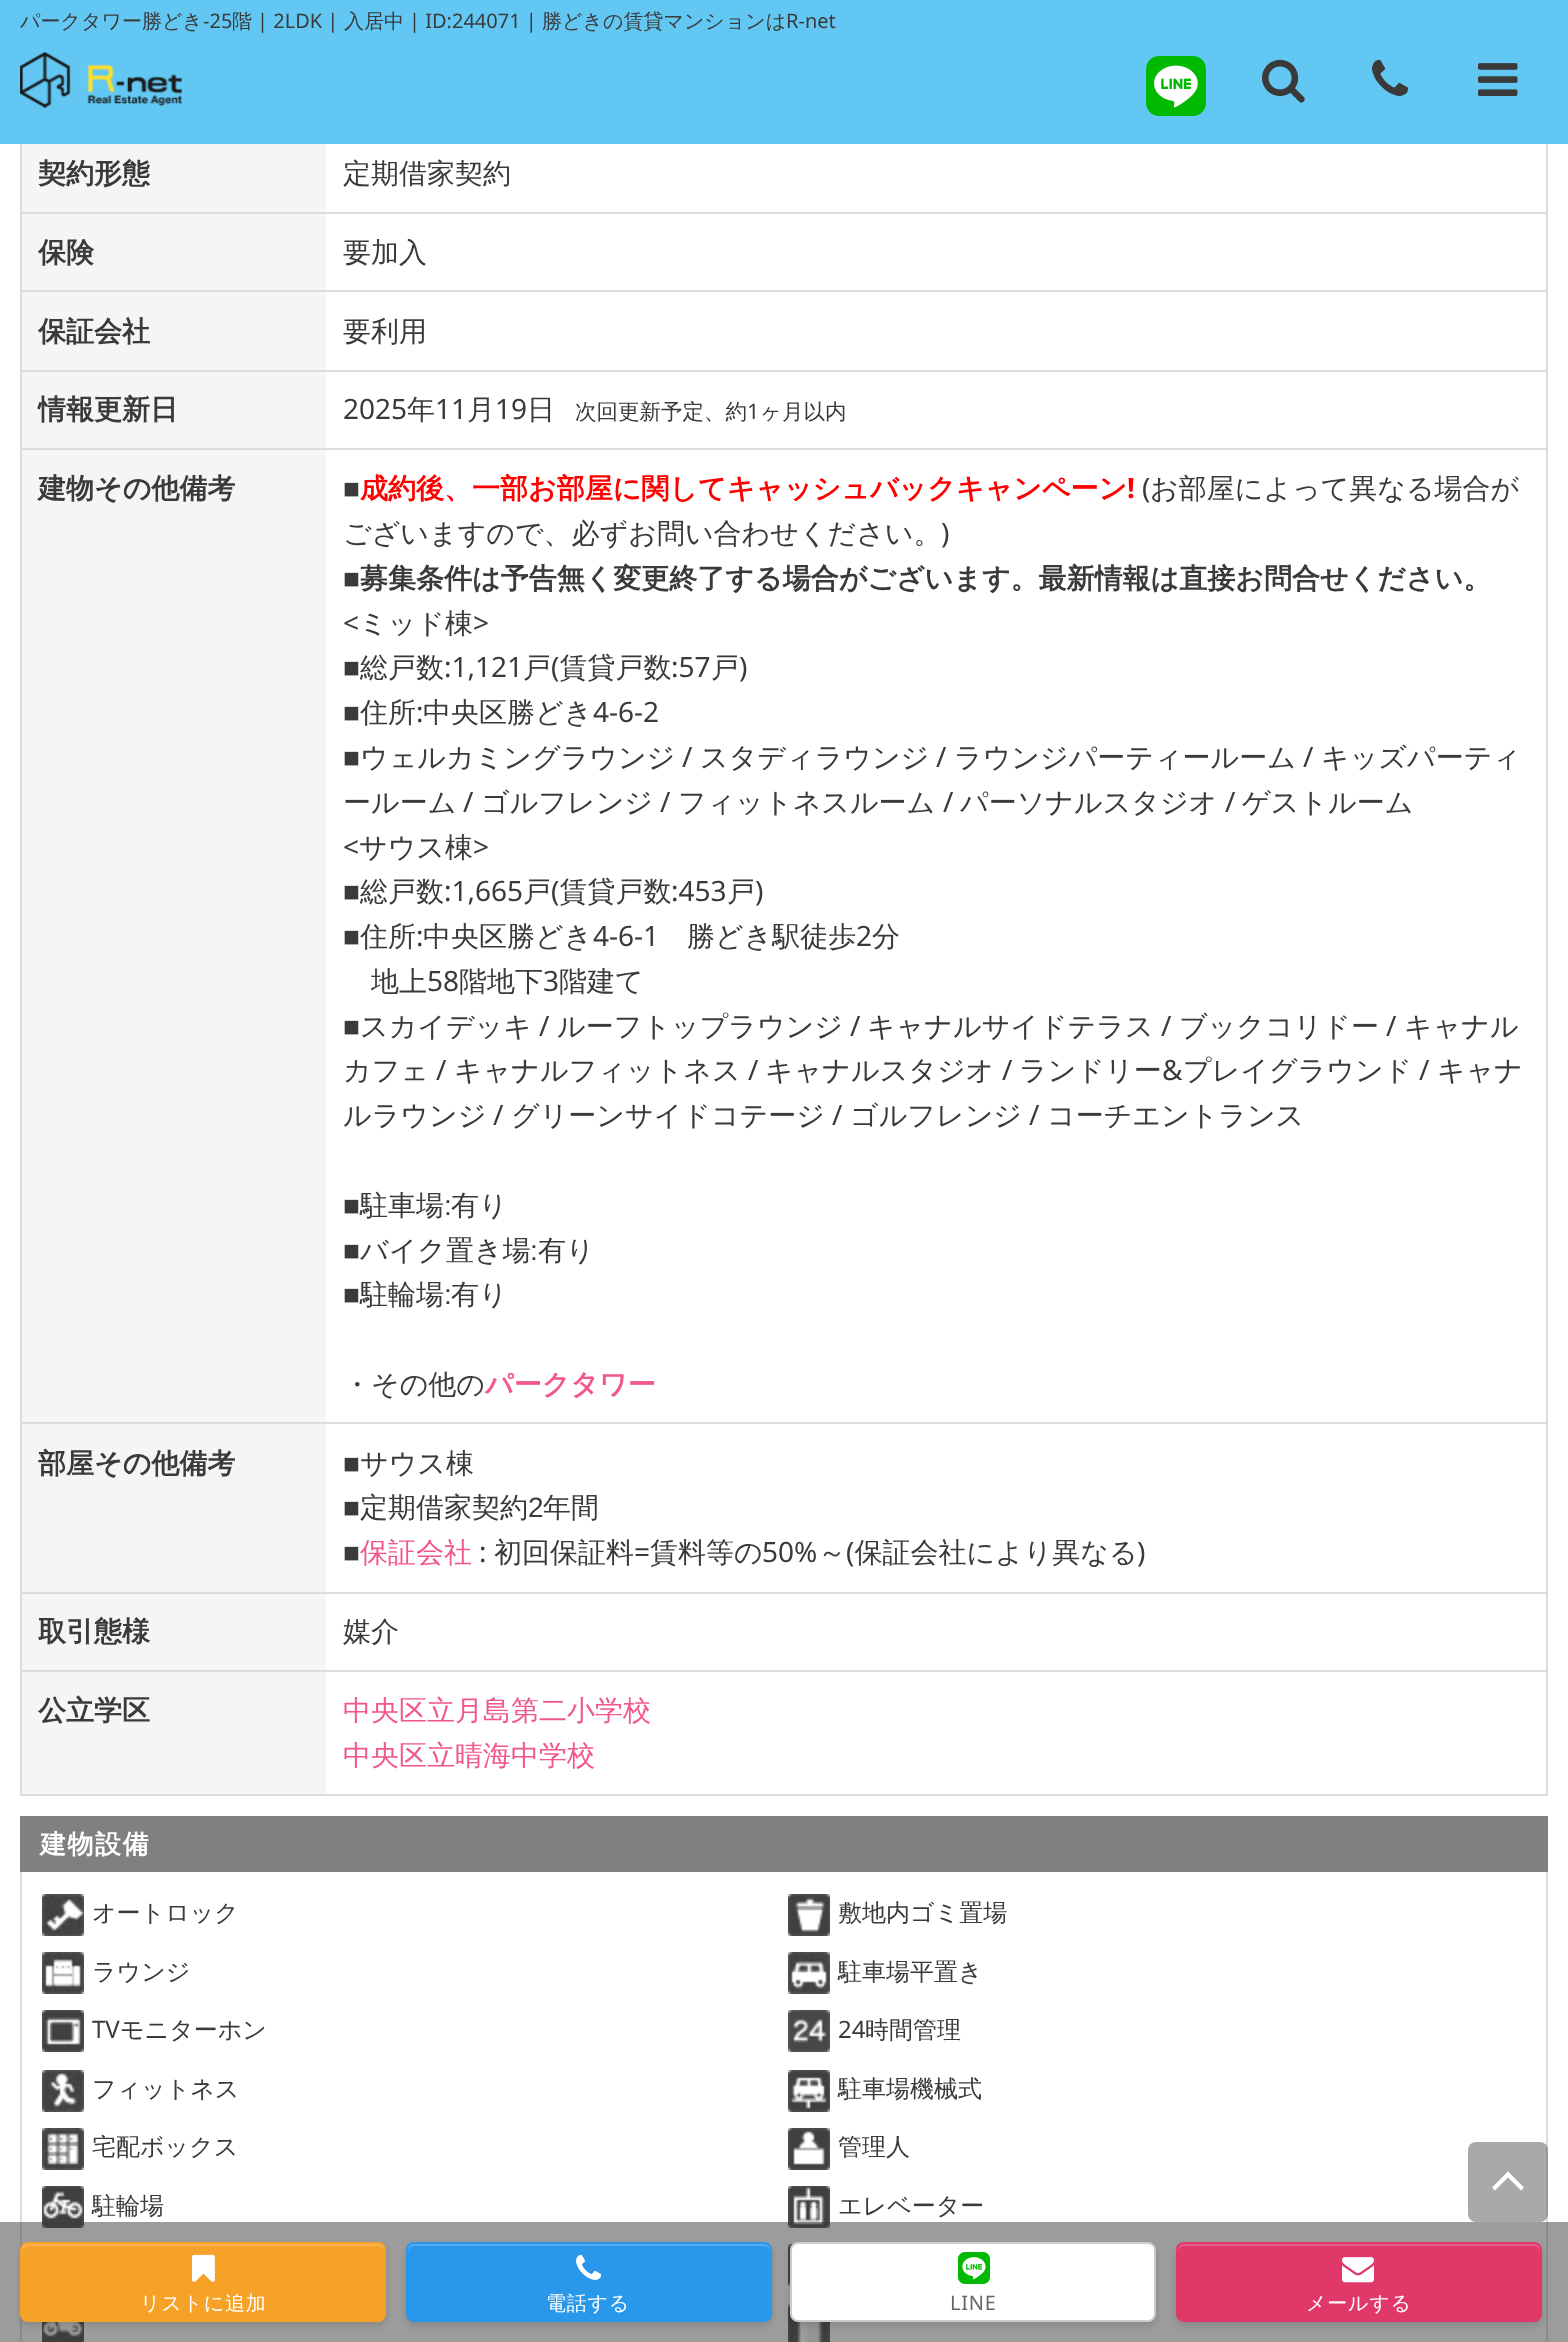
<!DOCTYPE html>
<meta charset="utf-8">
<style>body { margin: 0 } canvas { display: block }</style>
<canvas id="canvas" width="1568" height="2342"></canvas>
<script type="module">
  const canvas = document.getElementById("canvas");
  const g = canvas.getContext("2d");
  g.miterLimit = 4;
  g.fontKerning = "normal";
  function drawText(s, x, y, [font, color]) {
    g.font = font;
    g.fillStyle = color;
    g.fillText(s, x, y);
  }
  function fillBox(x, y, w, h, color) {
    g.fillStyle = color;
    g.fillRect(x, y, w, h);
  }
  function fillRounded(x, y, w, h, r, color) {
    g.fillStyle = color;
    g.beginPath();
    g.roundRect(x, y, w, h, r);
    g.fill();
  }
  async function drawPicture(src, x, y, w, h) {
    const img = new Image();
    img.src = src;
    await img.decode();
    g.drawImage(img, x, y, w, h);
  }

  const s1 = ["500 20px WenQuanYi Zen Hei", "#3A3A3A"];
  const s2 = ["20px Noto Sans", "#3A3A3A"];
  const s3 = ["bold 28px WenQuanYi Zen Hei", "#3A3A3A"];
  const s4 = ["500 28px WenQuanYi Zen Hei", "#3A3A3A"];
  const s5 = ["28px Noto Sans", "#3A3A3A"];
  const s6 = ["500 21.5px WenQuanYi Zen Hei", "#3A3A3A"];
  const s7 = ["21.5px Noto Sans", "#3A3A3A"];
  const s8 = ["28px Liberation Sans", "#3A3A3A"];
  const s9 = ["bold 28px WenQuanYi Zen Hei", "#FF0000"];
  const s10 = ["bold 28px Noto Sans", "#FF0000"];
  const s11 = ["bold 28px WenQuanYi Zen Hei", "#F1568D"];
  const s12 = ["500 28px WenQuanYi Zen Hei", "#F1568D"];
  const s13 = ["bold 26px WenQuanYi Zen Hei", "#FFFFFF"];
  const s14 = ["500 24px WenQuanYi Zen Hei", "#3A3A3A"];
  const s15 = ["24px Noto Sans", "#3A3A3A"];
  const s16 = ["500 20px WenQuanYi Zen Hei", "#FFFFFF"];
  const s17 = ["20px Noto Sans", "#666666"];

  fillBox(0, 0, 1568, 2342, "#FFFFFF");
  g.strokeStyle = "#DCDCDC";
  g.lineWidth = 2;
  g.strokeRect(21, -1, 1526, 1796);
  fillBox(0, 0, 1568, 144, "#62C8F3");
  drawText("パークタワー勝どき", 20, 28, s1);
  drawText("-25", 203, 28, s2);
  drawText("階", 232, 28, s1);
  drawText("| 2LDK |", 257, 28, s2);
  drawText("入居中", 344, 28, s1);
  drawText("| ID:244071 |", 409, 28, s2);
  drawText("勝どきの賃貸マンションは", 542, 28, s1);
  drawText("R-net", 786, 28, s2);
  await drawPicture("pic1.png", 20, 52, 162, 56);
  await drawPicture("pic2.png", 1146, 56, 60, 60);
  await drawPicture("pic3.png", 1262, 59, 43, 44);
  await drawPicture("pic4.png", 1372, 59, 37, 37);
  await drawPicture("pic5.png", 1478, 63, 40, 33);
  fillBox(22, 144, 304, 68, "#F5F5F5");
  fillBox(22, 212, 1524, 2, "#DCDCDC");
  drawText("契約形態", 38, 183, s3);
  drawText("定期借家契約", 343, 183, s4);
  fillBox(22, 214, 304, 76, "#F5F5F5");
  fillBox(22, 290, 1524, 2, "#DCDCDC");
  drawText("保険", 38, 262, s3);
  drawText("要加入", 343, 262, s4);
  fillBox(22, 292, 304, 78, "#F5F5F5");
  fillBox(22, 370, 1524, 2, "#DCDCDC");
  drawText("保証会社", 38, 341, s3);
  drawText("要利用", 343, 341, s4);
  fillBox(22, 372, 304, 76, "#F5F5F5");
  fillBox(22, 448, 1524, 2, "#DCDCDC");
  drawText("情報更新日", 38, 419, s3);
  drawText("2025", 343, 419, s5);
  drawText("年", 407, 419, s4);
  drawText("11", 435, 419, s5);
  drawText("月", 467, 419, s4);
  drawText("19", 495, 419, s5);
  drawText("日", 527, 419, s4);
  drawText("次回更新予定、約", 575, 419, s6);
  drawText("1", 747, 419, s7);
  drawText("ヶ月以内", 760, 419, s6);
  fillBox(22, 450, 304, 972, "#F5F5F5");
  fillBox(22, 1422, 1524, 2, "#DCDCDC");
  drawText("建物その他備考", 38, 498, s3);
  drawText("■", 343, 498, s8);
  drawText("成約後、一部お部屋に関してキャッシュバックキャンペーン", 360, 498, s9);
  drawText("!", 1127, 498, s10);
  drawText("(", 1142, 498, s5);
  drawText("お部屋によって異なる場合が", 1150, 498, s4);
  drawText("ございますので、必ずお問い合わせください。", 343, 543, s4);
  drawText(")", 941, 543, s5);
  drawText("■", 343, 588, s8);
  drawText("募集条件は予告無く変更終了する場合がございます。最新情報は直接お問合せください。", 360, 588, s3);
  drawText("<", 343, 633, s5);
  drawText("ミッド棟", 359, 633, s4);
  drawText(">", 473, 633, s5);
  drawText("総戸数", 360, 677, s4);
  drawText(":1,121", 444, 677, s5);
  drawText("戸 賃貸戸数", 523, 677, s4);
  drawText("戸", 711, 677, s4);
  drawText("■", 343, 677, s8);
  drawText("(", 551, 677, s5);
  drawText(":57", 671, 677, s5);
  drawText(")", 739, 677, s5);
  drawText("■", 343, 722, s8);
  drawText("住所", 360, 722, s4);
  drawText(":", 416, 722, s5);
  drawText("中央区勝どき", 423, 722, s4);
  drawText("4‐6‐2", 593, 722, s5);
  drawText("■", 343, 767, s8);
  drawText("ウェルカミングラウンジ", 360, 767, s4);
  drawText("/", 682, 767, s5);
  drawText("スタディラウンジ", 700, 767, s4);
  drawText("/", 936, 767, s5);
  drawText("ラウンジパーティールーム", 954, 767, s4);
  drawText("/", 1303, 767, s5);
  drawText("キッズパーティ", 1321, 767, s4);
  drawText("ールーム", 343, 812, s4);
  drawText("/", 463, 812, s5);
  drawText("ゴルフレンジ", 481, 812, s4);
  drawText("/", 660, 812, s5);
  drawText("フィットネスルーム", 678, 812, s4);
  drawText("/", 943, 812, s5);
  drawText("パーソナルスタジオ", 960, 812, s4);
  drawText("/", 1225, 812, s5);
  drawText("ゲストルーム", 1242, 812, s4);
  drawText("<", 343, 857, s5);
  drawText("サウス棟", 359, 857, s4);
  drawText(">", 473, 857, s5);
  drawText("総戸数", 360, 901, s4);
  drawText(":1,665", 444, 901, s5);
  drawText("戸 賃貸戸数", 523, 901, s4);
  drawText(":453", 671, 901, s5);
  drawText("戸", 727, 901, s4);
  drawText("■", 343, 901, s8);
  drawText("(", 551, 901, s5);
  drawText(")", 755, 901, s5);
  drawText("■", 343, 946, s8);
  drawText("住所", 360, 946, s4);
  drawText(":", 416, 946, s5);
  drawText("中央区勝どき", 423, 946, s4);
  drawText("4‐6‐1", 593, 946, s5);
  drawText("勝どき駅徒歩", 687, 946, s4);
  drawText("2", 856, 946, s5);
  drawText("分", 872, 946, s4);
  drawText("地上", 371, 991, s4);
  drawText("58", 427, 991, s5);
  drawText("階地下", 459, 991, s4);
  drawText("3", 543, 991, s5);
  drawText("階建て", 559, 991, s4);
  drawText("■", 343, 1036, s8);
  drawText("スカイデッキ", 360, 1036, s4);
  drawText("/", 539, 1036, s5);
  drawText("ルーフトップラウンジ", 557, 1036, s4);
  drawText("/", 850, 1036, s5);
  drawText("キャナルサイドテラス", 867, 1036, s4);
  drawText("/", 1161, 1036, s5);
  drawText("ブックコリドー", 1179, 1036, s4);
  drawText("/", 1386, 1036, s5);
  drawText("キャナル", 1404, 1036, s4);
  drawText("カフェ", 343, 1080, s4);
  drawText("/", 436, 1080, s5);
  drawText("キャナルフィットネス", 454, 1080, s4);
  drawText("/", 748, 1080, s5);
  drawText("キャナルスタジオ", 765, 1080, s4);
  drawText("/", 1002, 1080, s5);
  drawText("ランドリー", 1019, 1080, s4);
  drawText("&", 1162, 1080, s5);
  drawText("プレイグラウンド", 1183, 1080, s4);
  drawText("/", 1419, 1080, s5);
  drawText("キャナ", 1437, 1080, s4);
  drawText("ルラウンジ", 343, 1125, s4);
  drawText("/", 493, 1125, s5);
  drawText("グリーンサイドコテージ", 511, 1125, s4);
  drawText("/", 832, 1125, s5);
  drawText("ゴルフレンジ", 850, 1125, s4);
  drawText("/", 1029, 1125, s5);
  drawText("コーチエントランス", 1047, 1125, s4);
  drawText("■", 343, 1215, s8);
  drawText("駐車場", 360, 1215, s4);
  drawText(":", 444, 1215, s8);
  drawText("有り", 451, 1215, s4);
  drawText("■", 343, 1260, s8);
  drawText("バイク置き場", 360, 1260, s4);
  drawText(":", 530, 1260, s8);
  drawText("有り", 538, 1260, s4);
  drawText("■", 343, 1304, s8);
  drawText("駐輪場", 360, 1304, s4);
  drawText(":", 444, 1304, s8);
  drawText("有り", 451, 1304, s4);
  drawText("・その他の", 343, 1394, s4);
  drawText("パークタワー", 485, 1394, s11);
  fillBox(22, 1424, 304, 168, "#F5F5F5");
  fillBox(22, 1592, 1524, 2, "#DCDCDC");
  drawText("部屋その他備考", 38, 1473, s3);
  drawText("■", 343, 1473, s8);
  drawText("サウス棟", 360, 1473, s4);
  drawText("■", 343, 1517, s8);
  drawText("定期借家契約", 360, 1517, s4);
  drawText("2", 528, 1517, s8);
  drawText("年間", 543, 1517, s4);
  drawText("保証会社", 360, 1562, s12);
  drawText("初回保証料", 494, 1562, s4);
  drawText("賃料等の", 650, 1562, s4);
  drawText("50%", 762, 1562, s5);
  drawText("～ 保証会社により異なる", 818, 1562, s4);
  drawText("■", 343, 1562, s8);
  drawText(":", 479, 1562, s5);
  drawText("=", 634, 1562, s5);
  drawText("(", 846, 1562, s5);
  drawText(")", 1137, 1562, s5);
  fillBox(22, 1594, 304, 76, "#F5F5F5");
  fillBox(22, 1670, 1524, 2, "#DCDCDC");
  drawText("取引態様", 38, 1641, s3);
  drawText("媒介", 343, 1641, s4);
  fillBox(22, 1672, 304, 122, "#F5F5F5");
  drawText("公立学区", 38, 1720, s3);
  drawText("中央区立月島第二小学校", 343, 1720, s12);
  drawText("中央区立晴海中学校", 343, 1765, s12);
  fillBox(20, 1816, 1528, 56, "#808080");
  g.letterSpacing = "1.5px";
  drawText("建物設備", 40, 1853, s13);
  fillBox(1546, 1872, 2, 470, "#DCDCDC");
  fillBox(20, 1872, 2, 470, "#DCDCDC");
  await drawPicture("pic6.png", 42, 1894, 42, 42);
  g.letterSpacing = "0px";
  drawText("オートロック", 92, 1921, s14);
  await drawPicture("pic7.png", 788, 1894, 42, 42);
  drawText("敷地内ゴミ置場", 838, 1921, s14);
  await drawPicture("pic8.png", 42, 1952, 42, 42);
  drawText("ラウンジ", 92, 1980, s14);
  await drawPicture("pic9.png", 788, 1952, 42, 42);
  drawText("駐車場平置き", 838, 1980, s14);
  await drawPicture("pic10.png", 42, 2010, 42, 42);
  drawText("TV", 92, 2038, s15);
  drawText("モニターホン", 120, 2038, s14);
  await drawPicture("pic11.png", 788, 2010, 42, 42);
  drawText("24", 838, 2038, s15);
  drawText("時間管理", 865, 2038, s14);
  await drawPicture("pic12.png", 42, 2070, 42, 42);
  drawText("フィットネス", 92, 2097, s14);
  await drawPicture("pic13.png", 788, 2070, 42, 42);
  drawText("駐車場機械式", 838, 2097, s14);
  await drawPicture("pic14.png", 42, 2128, 42, 42);
  drawText("宅配ボックス", 92, 2155, s14);
  await drawPicture("pic15.png", 788, 2128, 42, 42);
  drawText("管理人", 838, 2155, s14);
  await drawPicture("pic16.png", 42, 2186, 42, 42);
  drawText("駐輪場", 92, 2214, s14);
  await drawPicture("pic17.png", 788, 2186, 42, 42);
  drawText("エレベーター", 838, 2214, s14);
  await drawPicture("pic18.png", 788, 2244, 5, 42);
  await drawPicture("pic19.png", 42, 2322, 42, 20);
  await drawPicture("pic20.png", 788, 2304, 42, 38);
  fillBox(0, 2222, 1568, 120, "rgba(58, 58, 58, 0.5)");
  g.fillStyle = "rgba(0, 0, 0, 0.12)";
  g.filter = "blur(3px)";
  g.beginPath();
  g.roundRect(20, 2246, 366, 80, 8);
  g.fill();
  g.filter = "none";
  fillRounded(20, 2242, 366, 80, 8, "#F6A128");
  g.fillStyle = "#F8B453";
  g.beginPath();
  g.moveTo(28, 2246);
  g.lineTo(378, 2246);
  g.bezierCurveTo(381, 2246, 384, 2249, 384, 2252);
  g.lineTo(384, 2250);
  g.bezierCurveTo(384, 2247, 381, 2244, 378, 2244);
  g.lineTo(28, 2244);
  g.bezierCurveTo(25, 2244, 22, 2247, 22, 2250);
  g.lineTo(22, 2252);
  g.bezierCurveTo(22, 2249, 25, 2246, 28, 2246);
  g.closePath();
  g.fill();
  await drawPicture("pic21.png", 192, 2254, 23, 28);
  g.letterSpacing = "0.75px";
  drawText("リストに追加", 140, 2310, s16);
  g.fillStyle = "rgba(0, 0, 0, 0.12)";
  g.filter = "blur(3px)";
  g.beginPath();
  g.roundRect(406, 2246, 366, 80, 8);
  g.fill();
  g.filter = "none";
  fillRounded(406, 2242, 366, 80, 8, "#2997EA");
  g.fillStyle = "#54ACEE";
  g.beginPath();
  g.moveTo(414, 2246);
  g.lineTo(764, 2246);
  g.bezierCurveTo(767, 2246, 770, 2249, 770, 2252);
  g.lineTo(770, 2250);
  g.bezierCurveTo(770, 2247, 767, 2244, 764, 2244);
  g.lineTo(414, 2244);
  g.bezierCurveTo(411, 2244, 408, 2247, 408, 2250);
  g.lineTo(408, 2252);
  g.bezierCurveTo(408, 2249, 411, 2246, 414, 2246);
  g.closePath();
  g.fill();
  await drawPicture("pic22.png", 576, 2254, 26, 26);
  drawText("電話する", 546, 2310, s16);
  g.fillStyle = "rgba(0, 0, 0, 0.12)";
  g.filter = "blur(3px)";
  g.beginPath();
  g.roundRect(790, 2246, 366, 80, 8);
  g.fill();
  g.filter = "none";
  g.fillStyle = "#FFFFFF";
  g.beginPath();
  g.roundRect(791, 2243, 364, 78, 7);
  g.fill();
  g.strokeStyle = "#CCCCCC";
  g.stroke();
  await drawPicture("pic23.png", 958, 2252, 32, 32);
  drawText("LINE", 950, 2310, s17);
  g.fillStyle = "rgba(0, 0, 0, 0.12)";
  g.filter = "blur(3px)";
  g.beginPath();
  g.roundRect(1176, 2246, 366, 80, 8);
  g.fill();
  g.filter = "none";
  fillRounded(1176, 2242, 366, 80, 8, "#DF3869");
  g.fillStyle = "#E56087";
  g.beginPath();
  g.moveTo(1184, 2246);
  g.lineTo(1534, 2246);
  g.bezierCurveTo(1537, 2246, 1540, 2249, 1540, 2252);
  g.lineTo(1540, 2250);
  g.bezierCurveTo(1540, 2247, 1537, 2244, 1534, 2244);
  g.lineTo(1184, 2244);
  g.bezierCurveTo(1181, 2244, 1178, 2247, 1178, 2250);
  g.lineTo(1178, 2252);
  g.bezierCurveTo(1178, 2249, 1181, 2246, 1184, 2246);
  g.closePath();
  g.fill();
  await drawPicture("pic24.png", 1342, 2257, 32, 26);
  drawText("メールする", 1306, 2310, s16);
  fillRounded(1468, 2142, 80, 80, 8, "rgba(85, 83, 79, 0.5)");
  g.fillStyle = "#FFFFFF";
  g.beginPath();
  g.moveTo(1492, 2187.5);
  g.lineTo(1508, 2171.5);
  g.lineTo(1511, 2174.5);
  g.lineTo(1495, 2190.5);
  g.closePath();
  g.fill();
  g.beginPath();
  g.moveTo(1505, 2174.5);
  g.lineTo(1508, 2171.5);
  g.lineTo(1524, 2187.5);
  g.lineTo(1521, 2190.5);
  g.closePath();
  g.fill();
</script>
